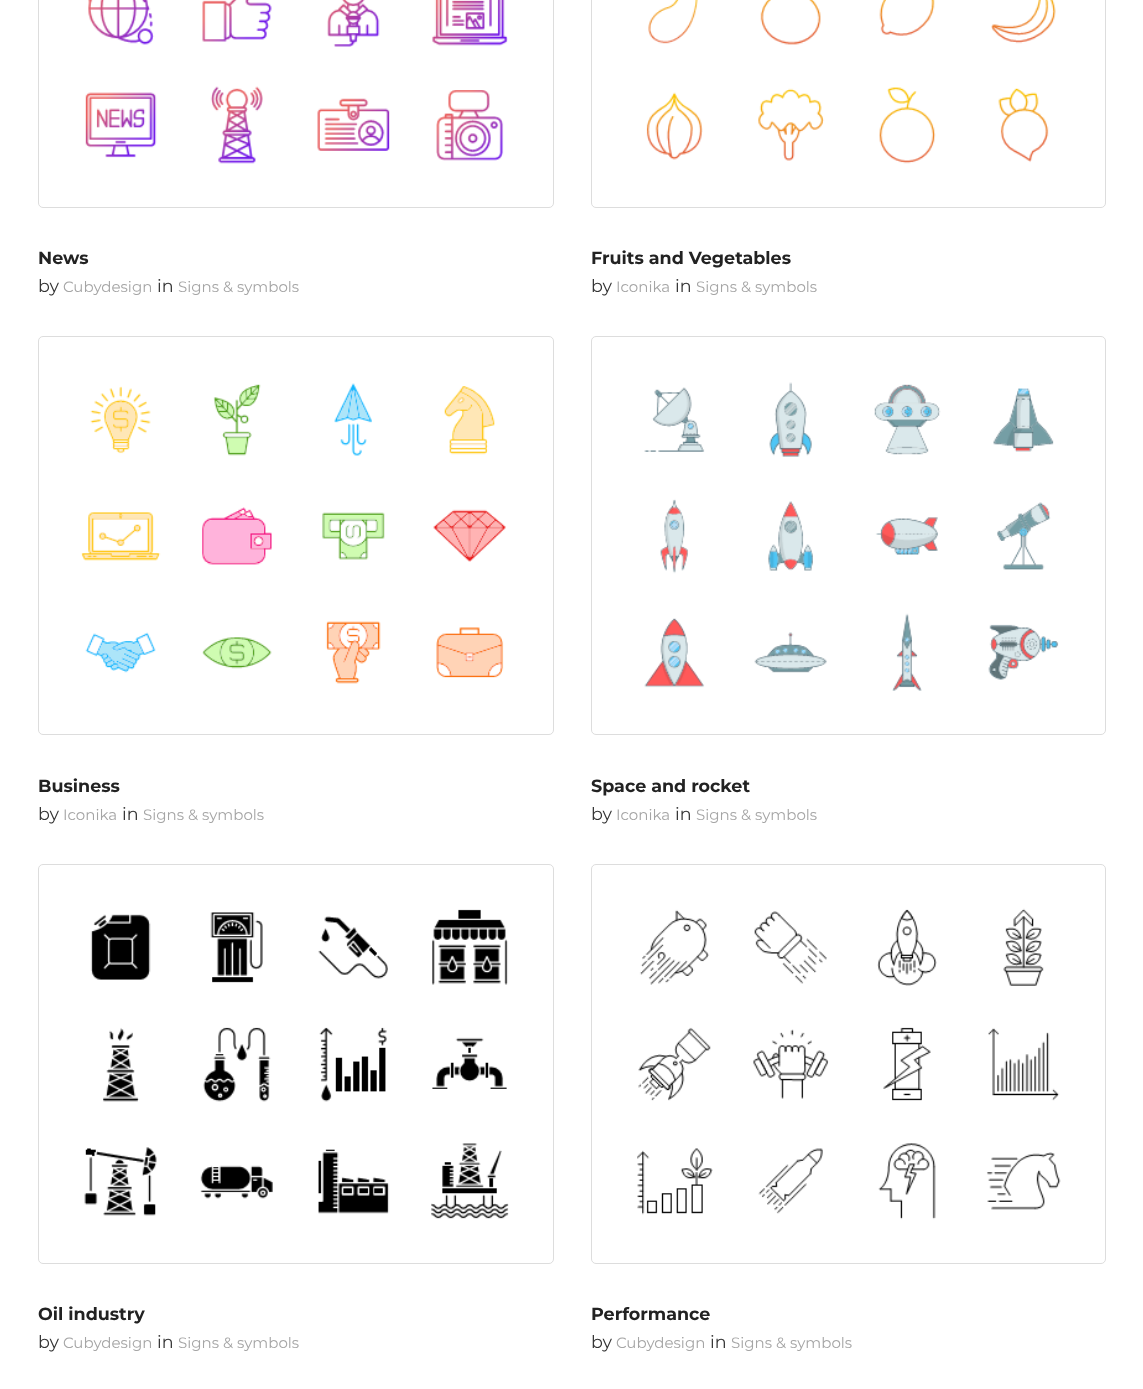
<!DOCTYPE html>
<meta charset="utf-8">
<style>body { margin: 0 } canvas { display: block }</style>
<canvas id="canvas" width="1143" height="1389"></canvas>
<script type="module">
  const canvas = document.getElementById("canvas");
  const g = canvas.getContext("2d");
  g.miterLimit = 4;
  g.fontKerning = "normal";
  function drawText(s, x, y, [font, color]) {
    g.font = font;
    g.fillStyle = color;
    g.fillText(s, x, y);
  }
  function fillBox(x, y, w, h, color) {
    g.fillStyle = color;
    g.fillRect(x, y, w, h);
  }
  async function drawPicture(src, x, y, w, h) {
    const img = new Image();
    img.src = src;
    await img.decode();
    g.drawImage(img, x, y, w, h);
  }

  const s1 = ["bold 17.5px Montserrat", "#222222"];
  const s2 = ["17.5px Montserrat", "#333333"];
  const s3 = ["15px Montserrat", "#A5A5A5"];

  fillBox(0, 0, 1143, 1389, "#FFFFFF");
  g.beginPath();
  g.roundRect(38.5, -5.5, 515, 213, 4.5);
  g.strokeStyle = "#DDDDDD";
  g.stroke();
  await drawPicture("pic1.png", 85, 0, 423, 164);
  drawText("News", 38, 264, s1);
  drawText("by", 38, 292, s2);
  drawText("Cubydesign", 63, 292, s3);
  drawText("in", 157, 292, s2);
  drawText("Signs & symbols", 178, 292, s3);
  g.beginPath();
  g.roundRect(591.5, -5.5, 514, 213, 4.5);
  g.stroke();
  await drawPicture("pic2.png", 646, 0, 410, 164);
  drawText("Fruits and Vegetables", 591, 264, s1);
  drawText("by", 591, 292, s2);
  drawText("Iconika", 616, 292, s3);
  drawText("in", 675, 292, s2);
  drawText("Signs & symbols", 696, 292, s3);
  g.beginPath();
  g.roundRect(38.5, 336.5, 515, 398, 4.5);
  g.stroke();
  await drawPicture("pic3.png", 81, 383, 425, 301);
  drawText("Business", 38, 792, s1);
  drawText("by", 38, 820, s2);
  drawText("Iconika", 63, 820, s3);
  drawText("in", 122, 820, s2);
  drawText("Signs & symbols", 143, 820, s3);
  g.beginPath();
  g.roundRect(591.5, 336.5, 514, 398, 4.5);
  g.stroke();
  await drawPicture("pic4.png", 644, 382, 415, 309);
  drawText("Space and rocket", 591, 792, s1);
  drawText("by", 591, 820, s2);
  drawText("Iconika", 616, 820, s3);
  drawText("in", 675, 820, s2);
  drawText("Signs & symbols", 696, 820, s3);
  g.beginPath();
  g.roundRect(38.5, 864.5, 515, 399, 4.5);
  g.stroke();
  await drawPicture("pic5.png", 84, 909, 425, 310);
  drawText("Oil industry", 38, 1320, s1);
  drawText("by", 38, 1348, s2);
  drawText("Cubydesign", 63, 1348, s3);
  drawText("in", 157, 1348, s2);
  drawText("Signs & symbols", 178, 1348, s3);
  g.beginPath();
  g.roundRect(591.5, 864.5, 514, 399, 4.5);
  g.stroke();
  await drawPicture("pic6.png", 637, 908, 424, 312);
  drawText("Performance", 591, 1320, s1);
  drawText("by", 591, 1348, s2);
  drawText("Cubydesign", 616, 1348, s3);
  drawText("in", 710, 1348, s2);
  drawText("Signs & symbols", 731, 1348, s3);
</script>
